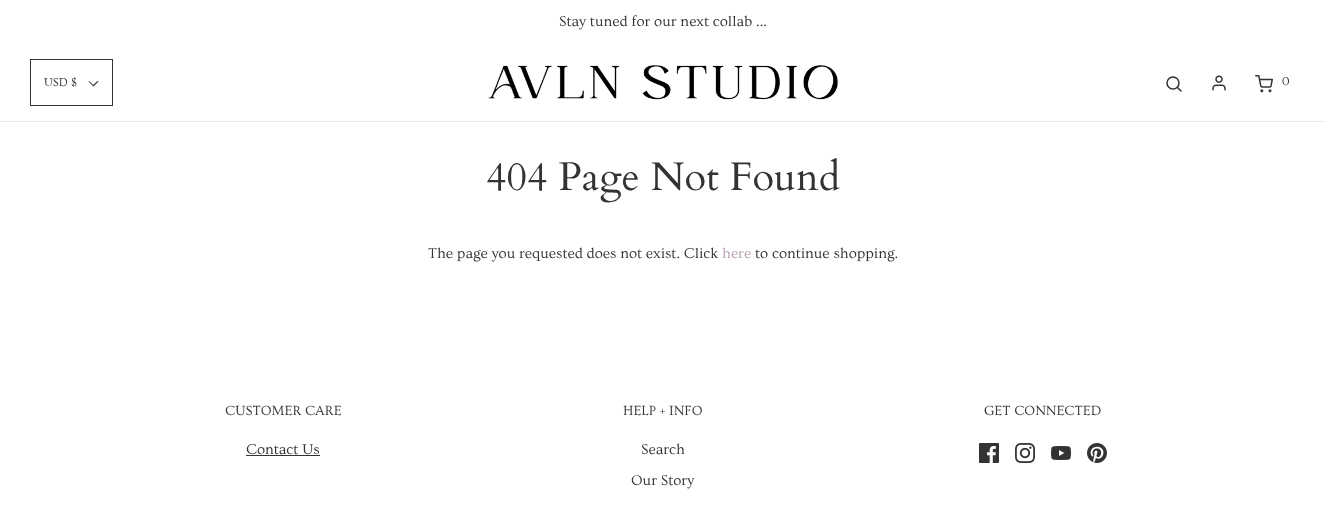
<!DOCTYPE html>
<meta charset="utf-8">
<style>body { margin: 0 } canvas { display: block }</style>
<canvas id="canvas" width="1326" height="509"></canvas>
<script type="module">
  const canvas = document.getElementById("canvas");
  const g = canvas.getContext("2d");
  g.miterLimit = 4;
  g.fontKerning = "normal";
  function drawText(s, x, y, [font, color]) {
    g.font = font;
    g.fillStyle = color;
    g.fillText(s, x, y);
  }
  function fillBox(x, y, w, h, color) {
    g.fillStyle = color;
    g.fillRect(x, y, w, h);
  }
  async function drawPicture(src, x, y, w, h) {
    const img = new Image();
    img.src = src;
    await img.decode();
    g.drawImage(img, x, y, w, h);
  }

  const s1 = ["15px Ovo", "#333333"];
  const s2 = ["12px Ovo", "#333333"];
  const s3 = ["40px Cardo", "#333333"];
  const s4 = ["15px Ovo", "#B69FB1"];
  const s5 = ["14px Ovo", "#333333"];

  fillBox(0, 0, 1326, 509, "#FFFFFF");
  drawText("Stay tuned for our next collab ...", 559, 26, s1);
  fillBox(0, 121, 1326, 1, "#EBEBEB");
  g.strokeStyle = "#333333";
  g.strokeRect(30.5, 59.5, 82, 46);
  drawText("USD $", 44, 86, s2);
  g.beginPath();
  g.moveTo(97.5, 81);
  g.lineTo(98.5, 81.5);
  g.lineTo(93.5, 86.5);
  g.lineTo(92.5, 85.5);
  g.closePath();
  g.fill();
  g.beginPath();
  g.moveTo(89, 81);
  g.lineTo(94, 85.5);
  g.lineTo(93.5, 86.5);
  g.lineTo(88.5, 81.5);
  g.closePath();
  g.fill();
  await drawPicture("pic1.png", 488, 65, 350, 35);
  g.beginPath();
  g.arc(1173, 83, 6, 0, Math.PI * 2);
  g.lineWidth = 1.5;
  g.stroke();
  g.beginPath();
  g.moveTo(1181, 91);
  g.lineTo(1177.5, 87.5);
  g.lineCap = "round";
  g.lineJoin = "round";
  g.stroke();
  await drawPicture("pic2.png", 1212, 75, 14, 16);
  await drawPicture("pic3.png", 1255, 75, 18, 18);
  drawText("0", 1282, 85, s2);
  drawText("404 Page Not Found", 486, 190, s3);
  drawText("The page you requested does not exist. Click", 428, 258, s1);
  drawText("here", 722, 258, s4);
  drawText("to continue shopping.", 755, 258, s1);
  drawText("CUSTOMER CARE", 225, 415, s5);
  drawText("Contact Us", 246, 454, s1);
  fillBox(246, 455, 74, 1, "#333333");
  drawText("HELP + INFO", 623, 415, s5);
  drawText("Search", 641, 454, s1);
  drawText("Our Story", 631, 485, s1);
  drawText("GET CONNECTED", 984, 415, s5);
  await drawPicture("pic4.png", 979, 443, 20, 20);
  await drawPicture("pic5.png", 1015, 443, 20, 20);
  await drawPicture("pic6.png", 1051, 446, 20, 14);
  await drawPicture("pic7.png", 1087, 443, 20, 20);
</script>
